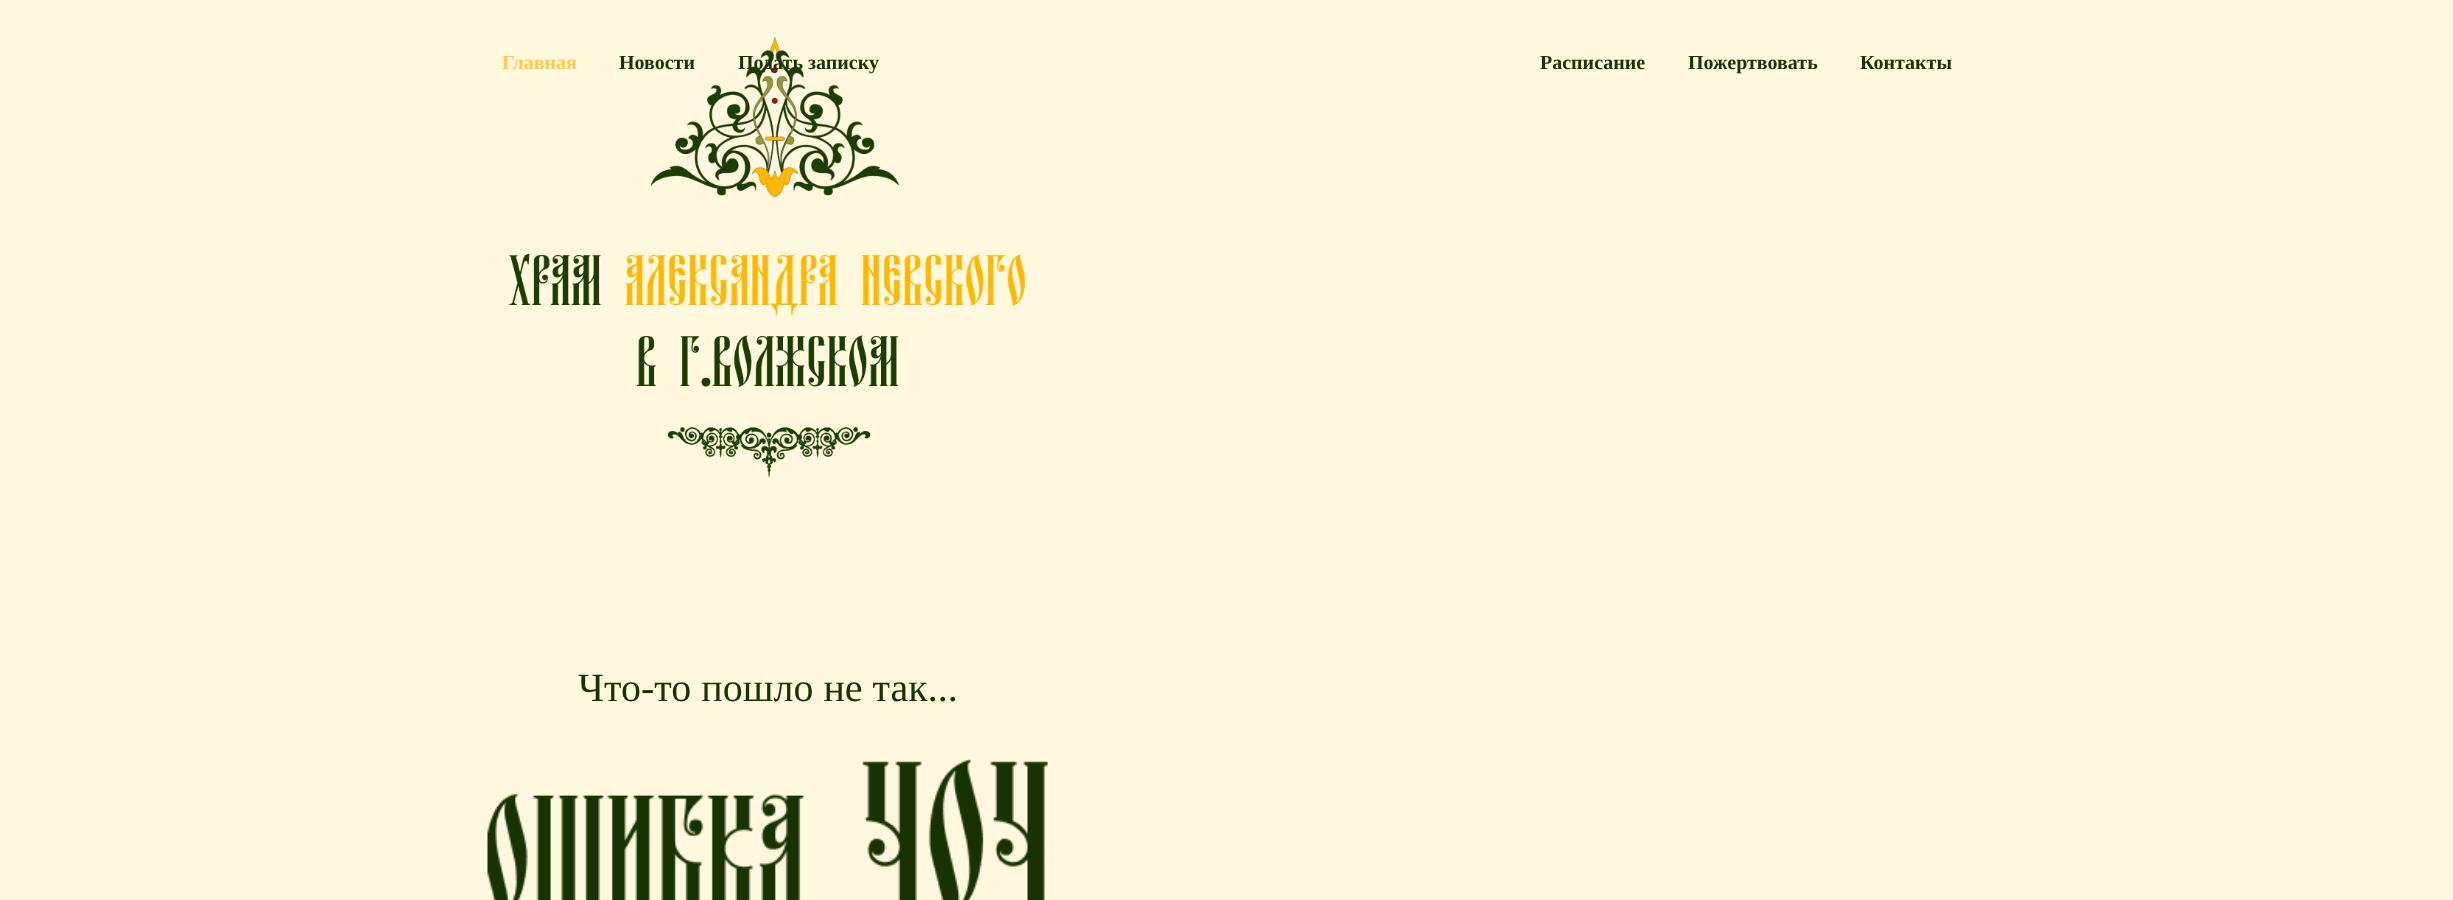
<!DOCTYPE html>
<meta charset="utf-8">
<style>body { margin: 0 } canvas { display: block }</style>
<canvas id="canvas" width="2453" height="900"></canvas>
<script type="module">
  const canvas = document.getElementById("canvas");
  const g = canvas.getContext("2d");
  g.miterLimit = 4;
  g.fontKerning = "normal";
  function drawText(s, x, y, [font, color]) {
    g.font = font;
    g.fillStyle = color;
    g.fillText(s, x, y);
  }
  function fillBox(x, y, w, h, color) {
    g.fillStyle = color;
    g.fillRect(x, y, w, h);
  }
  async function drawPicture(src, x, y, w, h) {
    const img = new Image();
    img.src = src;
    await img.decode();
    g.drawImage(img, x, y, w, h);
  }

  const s1 = ["bold 20px Liberation Serif", "#FFCB43"];
  const s2 = ["bold 20px Liberation Serif", "#173301"];
  const s3 = ["40px Liberation Serif", "#173301"];

  fillBox(0, 0, 2453, 900, "#FFF7DE");
  await drawPicture("pic1.png", 509, 37, 517, 441);
  drawText("Главная", 502, 69, s1);
  drawText("Новости", 619, 69, s2);
  drawText("Подать записку", 738, 69, s2);
  drawText("Расписание", 1540, 69, s2);
  drawText("Пожертвовать", 1688, 69, s2);
  drawText("Контакты", 1860, 69, s2);
  drawText("Что-то пошло не так...", 578, 701, s3);
  await drawPicture("pic2.png", 487, 758, 561, 142);
</script>
